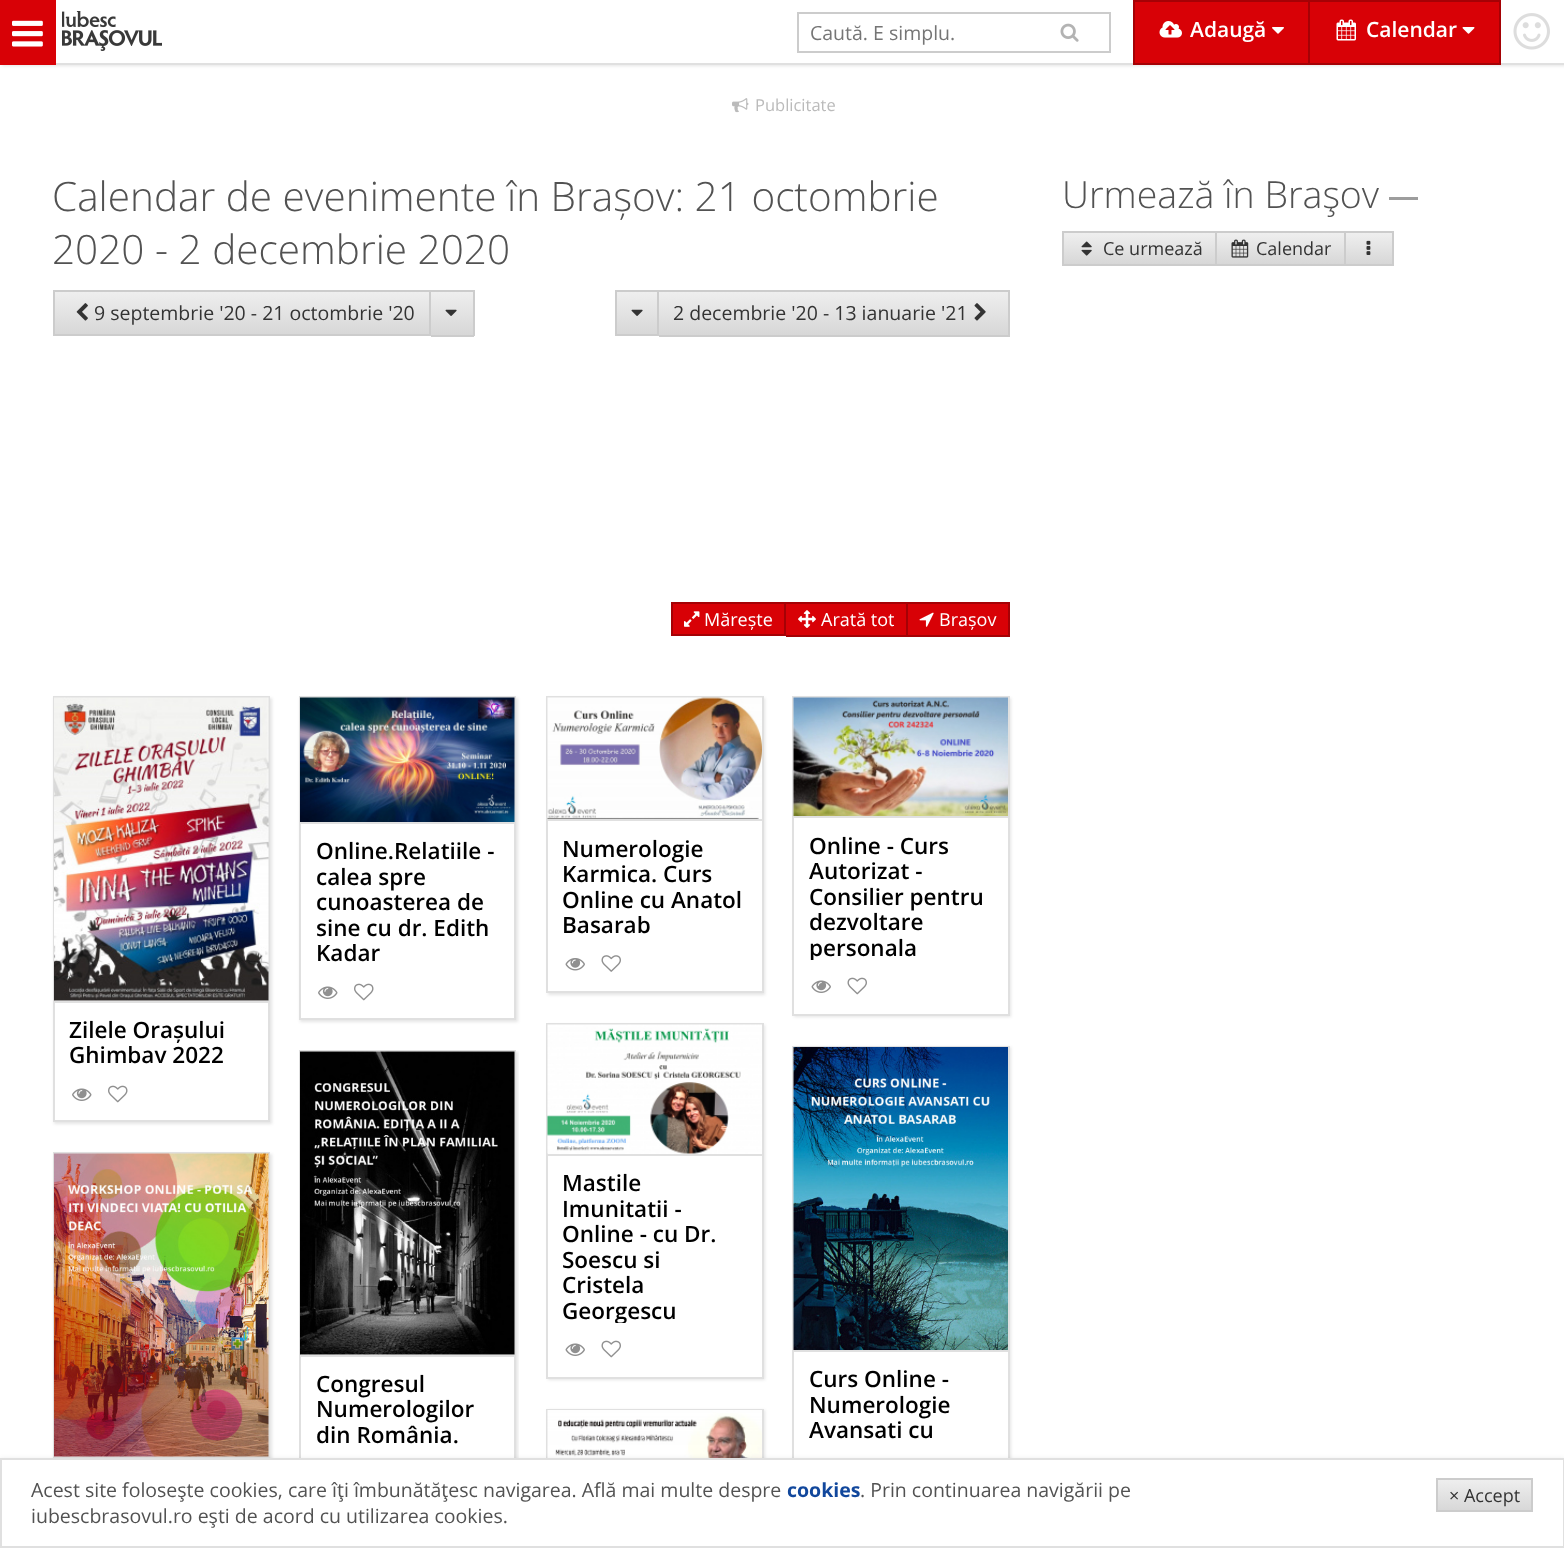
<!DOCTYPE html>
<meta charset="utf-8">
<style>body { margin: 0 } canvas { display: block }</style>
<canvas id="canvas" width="1564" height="1548"></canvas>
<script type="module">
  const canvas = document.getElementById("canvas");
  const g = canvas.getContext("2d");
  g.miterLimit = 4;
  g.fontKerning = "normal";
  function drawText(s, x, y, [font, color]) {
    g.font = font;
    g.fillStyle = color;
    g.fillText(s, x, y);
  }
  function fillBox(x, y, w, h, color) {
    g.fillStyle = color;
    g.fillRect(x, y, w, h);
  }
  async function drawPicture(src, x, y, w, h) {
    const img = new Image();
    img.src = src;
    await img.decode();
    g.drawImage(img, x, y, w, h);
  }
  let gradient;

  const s1 = ["19.5px Open Sans", "#757575"];
  const s2 = ["600 21px Open Sans", "#FFFFFF"];
  const s3 = ["16.5px Open Sans", "#BBBBBB"];
  const s4 = ["300 40.5px Open Sans", "#525252"];
  const s5 = ["19.5px Open Sans", "#333333"];
  const s6 = ["18px Open Sans", "#FFFFFF"];
  const s7 = ["600 22.5px Open Sans", "#000000"];
  const s8 = ["300 37.5px Open Sans", "#525252"];
  const s9 = ["18px Open Sans", "#333333"];
  const s10 = ["19.5px Open Sans", "#525252"];
  const s11 = ["bold 19.5px Open Sans", "#11479C"];

  fillBox(0, 0, 1564, 1548, "#FFFFFF");
  g.fillStyle = "rgba(0, 0, 0, 0.1)";
  g.filter = "blur(1.5px)";
  g.beginPath();
  g.rect(2, 2, 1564, 64);
  g.fill();
  g.filter = "none";
  fillBox(56, 0, 1508, 63, "#FFFFFF");
  fillBox(56, 63, 1508, 2, "#E0E0E0");
  fillBox(0, 0, 56, 65, "#D80106");
  await drawPicture("pic1.png", 12, 20, 31, 27);
  await drawPicture("pic2.png", 62, 11, 100, 40);
  fillBox(797, 12, 313, 2, "#CCCCCC");
  fillBox(797, 51, 235, 2, "#CCCCCC");
  fillBox(797, 12, 2, 41, "#CCCCCC");
  drawText("Caută. E simplu.", 810, 40, s1);
  fillBox(1109, 12, 2, 41, "#CCCCCC");
  fillBox(1032, 51, 78, 2, "#CCCCCC");
  await drawPicture("pic3.png", 1060, 23, 19, 19);
  g.fillStyle = "#D80106";
  g.beginPath();
  g.rect(1134, 1, 175, 63);
  g.fill();
  g.strokeStyle = "#A50105";
  g.lineWidth = 2;
  g.stroke();
  await drawPicture("pic4.png", 1159, 21, 23, 17);
  drawText("Adaugă", 1190, 37, s2);
  await drawPicture("pic5.png", 1272, 27, 12, 7);
  fillBox(1310, 2, 189, 61, "#D80106");
  fillBox(1310, 0, 190, 2, "#A50105");
  fillBox(1499, 0, 2, 65, "#A50105");
  fillBox(1310, 63, 190, 2, "#A50105");
  await drawPicture("pic6.png", 1336, 19, 20, 22);
  drawText("Calendar", 1366, 37, s2);
  await drawPicture("pic7.png", 1462, 27, 13, 7);
  await drawPicture("pic8.png", 1513, 13, 37, 37);
  await drawPicture("pic9.png", 732, 98, 17, 15);
  drawText("Publicitate", 755, 111, s3);
  drawText("Calendar de evenimente în Brașov: 21 octombrie", 52, 211, s4);
  drawText("2020 - 2 decembrie 2020", 52, 264, s4);
  gradient = g.createLinearGradient(242, 291, 242, 335);
  gradient.addColorStop(0, "#EFEFEF");
  gradient.addColorStop(1, "#D7D7D7");
  g.fillStyle = gradient;
  g.fillRect(55, 292, 374, 42);
  g.strokeStyle = "#CCCCCC";
  g.strokeRect(54, 291, 376, 44);
  await drawPicture("pic10.png", 76, 303, 12, 18);
  drawText("9 septembrie '20 - 21 octombrie '20", 94, 320, s5);
  gradient = g.createLinearGradient(452, 291, 452, 335);
  gradient.addColorStop(0, "#EFEFEF");
  gradient.addColorStop(1, "#D7D7D7");
  g.fillStyle = gradient;
  g.fillRect(431, 292, 42, 43);
  fillBox(431, 290, 43, 2, "#CCCCCC");
  fillBox(473, 290, 2, 46, "#CCCCCC");
  fillBox(431, 335, 43, 2, "#CCCCCC");
  await drawPicture("pic11.png", 445, 309, 12, 7);
  gradient = g.createLinearGradient(637, 291, 637, 335);
  gradient.addColorStop(0, "#EFEFEF");
  gradient.addColorStop(1, "#D7D7D7");
  g.fillStyle = gradient;
  g.fillRect(617, 292, 40, 42);
  g.strokeRect(616, 291, 42, 44);
  await drawPicture("pic11.png", 631, 309, 12, 7);
  gradient = g.createLinearGradient(833, 291, 833, 335);
  gradient.addColorStop(0, "#EFEFEF");
  gradient.addColorStop(1, "#D7D7D7");
  g.fillStyle = gradient;
  g.fillRect(659, 292, 349, 43);
  fillBox(659, 290, 351, 2, "#CCCCCC");
  fillBox(1008, 290, 2, 46, "#CCCCCC");
  fillBox(659, 335, 351, 2, "#CCCCCC");
  drawText("2 decembrie '20 - 13 ianuarie '21", 673, 320, s5);
  await drawPicture("pic12.png", 974, 303, 12, 18);
  g.fillStyle = "#D80106";
  g.beginPath();
  g.rect(672, 603, 113, 32);
  g.fill();
  g.strokeStyle = "#A50105";
  g.stroke();
  await drawPicture("pic13.png", 684, 611, 16, 16);
  drawText("Mărește", 704, 626, s6);
  fillBox(786, 604, 120, 31, "#D80106");
  fillBox(786, 602, 224, 2, "#A50105");
  fillBox(906, 602, 2, 34, "#A50105");
  fillBox(786, 635, 122, 2, "#A50105");
  await drawPicture("pic14.png", 798, 610, 18, 18);
  drawText("Arată tot", 821, 626, s6);
  fillBox(908, 604, 100, 31, "#D80106");
  fillBox(1008, 602, 2, 34, "#A50105");
  fillBox(908, 635, 102, 2, "#A50105");
  await drawPicture("pic15.png", 919, 612, 15, 15);
  drawText("Brașov", 939, 626, s6);
  g.save();
  g.beginPath();
  g.moveTo(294, 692);
  g.lineTo(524, 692);
  g.lineTo(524, 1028);
  g.lineTo(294, 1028);
  g.closePath();
  g.moveTo(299, 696);
  g.lineTo(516, 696);
  g.lineTo(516, 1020);
  g.lineTo(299, 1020);
  g.closePath();
  g.clip("evenodd");
  g.fillStyle = "rgba(0, 0, 0, 0.1)";
  g.filter = "blur(1.5px)";
  g.beginPath();
  g.rect(300, 698, 218, 324);
  g.fill();
  g.filter = "none";
  g.restore();
  g.strokeStyle = "#E0E0E0";
  g.strokeRect(300, 697, 215, 322);
  fillBox(300, 822, 215, 2, "#E0E0E0");
  await drawPicture("pic16.png", 300, 697, 215, 125);
  drawText("Online.Relatiile -", 316, 859, s7);
  drawText("calea spre", 316, 885, s7);
  drawText("cunoasterea de", 316, 910, s7);
  drawText("sine cu dr. Edith", 316, 936, s7);
  drawText("Kadar", 316, 961, s7);
  await drawPicture("pic17.png", 318, 986, 20, 13);
  await drawPicture("pic18.png", 354, 983, 20, 18);
  g.fillStyle = "rgba(0, 0, 0, 0.1)";
  g.filter = "blur(1.5px)";
  g.beginPath();
  g.rect(548, 698, 217, 297);
  g.fill();
  g.filter = "none";
  fillBox(548, 821, 214, 170, "#FFFFFF");
  g.strokeRect(547, 697, 216, 295);
  fillBox(548, 819, 214, 2, "#E0E0E0");
  await drawPicture("pic19.png", 547, 697, 215, 122);
  drawText("Numerologie", 562, 857, s7);
  drawText("Karmica. Curs", 562, 882, s7);
  drawText("Online cu Anatol", 562, 908, s7);
  drawText("Basarab", 562, 933, s7);
  await drawPicture("pic20.png", 565, 958, 20, 13);
  await drawPicture("pic21.png", 601, 955, 20, 17);
  g.fillStyle = "rgba(0, 0, 0, 0.1)";
  g.filter = "blur(1.5px)";
  g.beginPath();
  g.rect(794, 698, 217, 319);
  g.fill();
  g.filter = "none";
  fillBox(794, 818, 214, 196, "#FFFFFF");
  g.strokeRect(793, 697, 216, 318);
  fillBox(794, 816, 214, 2, "#E0E0E0");
  await drawPicture("pic22.png", 793, 697, 215, 119);
  drawText("Online - Curs", 809, 854, s7);
  drawText("Autorizat -", 809, 879, s7);
  drawText("Consilier pentru", 809, 905, s7);
  drawText("dezvoltare", 809, 930, s7);
  g.save();
  g.beginPath();
  g.rect(809, 833, 184, 127);
  g.clip();
  drawText("personala", 809, 956, s7);
  g.restore();
  await drawPicture("pic23.png", 811, 980, 20, 13);
  await drawPicture("pic24.png", 847, 977, 20, 18);
  g.save();
  g.beginPath();
  g.moveTo(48, 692);
  g.lineTo(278, 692);
  g.lineTo(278, 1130);
  g.lineTo(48, 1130);
  g.closePath();
  g.moveTo(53, 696);
  g.lineTo(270, 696);
  g.lineTo(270, 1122);
  g.lineTo(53, 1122);
  g.closePath();
  g.clip("evenodd");
  g.fillStyle = "rgba(0, 0, 0, 0.1)";
  g.filter = "blur(1.5px)";
  g.beginPath();
  g.rect(54, 698, 218, 426);
  g.fill();
  g.filter = "none";
  g.restore();
  g.strokeRect(54, 697, 215, 424);
  fillBox(54, 1001, 215, 2, "#E0E0E0");
  await drawPicture("pic25.png", 54, 697, 215, 304);
  drawText("Zilele Orașului", 69, 1038, s7);
  drawText("Ghimbav 2022", 69, 1063, s7);
  await drawPicture("pic17.png", 72, 1088, 20, 13);
  await drawPicture("pic18.png", 108, 1085, 20, 18);
  g.fillStyle = "rgba(0, 0, 0, 0.1)";
  g.filter = "blur(1.5px)";
  g.beginPath();
  g.rect(54, 1154, 218, 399);
  g.fill();
  g.filter = "none";
  g.strokeRect(54, 1153, 215, 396);
  fillBox(54, 1457, 215, 1, "#E0E0E0");
  await drawPicture("pic26.png", 54, 1153, 215, 304);
  g.fillStyle = "rgba(0, 0, 0, 0.1)";
  g.filter = "blur(1.5px)";
  g.beginPath();
  g.rect(548, 1025, 217, 355);
  g.fill();
  g.filter = "none";
  fillBox(548, 1153, 214, 224, "#FFFFFF");
  g.strokeRect(547, 1024, 216, 354);
  fillBox(548, 1154, 214, 2, "#E0E0E0");
  await drawPicture("pic27.png", 547, 1024, 215, 130);
  drawText("Mastile", 562, 1191, s7);
  drawText("Imunitatii -", 562, 1217, s7);
  drawText("Online - cu Dr.", 562, 1242, s7);
  drawText("Soescu si", 562, 1268, s7);
  drawText("Cristela", 562, 1293, s7);
  g.save();
  g.beginPath();
  g.rect(563, 1170, 184, 153);
  g.clip();
  drawText("Georgescu", 562, 1319, s7);
  g.restore();
  await drawPicture("pic23.png", 565, 1343, 20, 13);
  await drawPicture("pic24.png", 601, 1340, 20, 18);
  g.save();
  g.beginPath();
  g.rect(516, 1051, 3, 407);
  g.clip();
  g.fillStyle = "rgba(0, 0, 0, 0.1)";
  g.filter = "blur(1.5px)";
  g.beginPath();
  g.rect(300, 1052, 218, 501);
  g.fill();
  g.filter = "none";
  g.restore();
  g.strokeRect(300, 1051, 215, 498);
  fillBox(300, 1355, 215, 2, "#E0E0E0");
  await drawPicture("pic28.png", 300, 1051, 215, 304);
  drawText("Congresul", 316, 1392, s7);
  drawText("Numerologilor", 316, 1417, s7);
  drawText("din România.", 316, 1443, s7);
  g.fillStyle = "rgba(0, 0, 0, 0.1)";
  g.filter = "blur(1.5px)";
  g.beginPath();
  g.rect(548, 1410, 217, 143);
  g.fill();
  g.filter = "none";
  g.strokeRect(547, 1410, 216, 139);
  await drawPicture("pic29.png", 547, 1410, 215, 48);
  g.filter = "blur(1.5px)";
  g.beginPath();
  g.rect(794, 1047, 217, 479);
  g.fill();
  g.filter = "none";
  fillBox(794, 1352, 214, 106, "#FFFFFF");
  g.strokeRect(793, 1047, 216, 476);
  fillBox(794, 1350, 214, 2, "#E0E0E0");
  await drawPicture("pic30.png", 793, 1047, 215, 303);
  drawText("Curs Online -", 809, 1387, s7);
  drawText("Numerologie", 809, 1413, s7);
  drawText("Avansati cu", 809, 1438, s7);
  drawText("Urmează în Braşov", 1062, 208, s8);
  fillBox(1389, 197, 29, 3, "#9D9D9D");
  gradient = g.createLinearGradient(1139, 233, 1139, 264);
  gradient.addColorStop(0, "#EFEFEF");
  gradient.addColorStop(1, "#D7D7D7");
  g.fillStyle = gradient;
  g.fillRect(1064, 233, 151, 31);
  g.strokeStyle = "#CCCCCC";
  g.strokeRect(1063, 232, 153, 33);
  await drawPicture("pic31.png", 1081, 241, 11, 15);
  drawText("Ce urmează", 1103, 255, s9);
  gradient = g.createLinearGradient(1280, 233, 1280, 264);
  gradient.addColorStop(0, "#EFEFEF");
  gradient.addColorStop(1, "#D7D7D7");
  g.fillStyle = gradient;
  g.fillRect(1217, 233, 127, 31);
  fillBox(1217, 231, 177, 2, "#CCCCCC");
  fillBox(1344, 231, 2, 35, "#CCCCCC");
  fillBox(1217, 264, 129, 2, "#CCCCCC");
  await drawPicture("pic32.png", 1231, 239, 18, 19);
  drawText("Calendar", 1256, 255, s9);
  gradient = g.createLinearGradient(1369, 233, 1369, 264);
  gradient.addColorStop(0, "#EFEFEF");
  gradient.addColorStop(1, "#D7D7D7");
  g.fillStyle = gradient;
  g.fillRect(1346, 233, 46, 31);
  fillBox(1392, 231, 2, 35, "#CCCCCC");
  fillBox(1346, 264, 48, 2, "#CCCCCC");
  await drawPicture("pic33.png", 1366, 240, 5, 15);
  g.fillStyle = "rgba(0, 0, 0, 0.2)";
  g.filter = "blur(3px)";
  g.beginPath();
  g.rect(0, 1461, 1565, 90);
  g.fill();
  g.filter = "none";
  g.fillStyle = "#FFFFFF";
  g.beginPath();
  g.rect(1, 1459, 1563, 88);
  g.fill();
  g.strokeStyle = "#E0E0E0";
  g.stroke();
  drawText("Acest site foloseşte cookies, care îţi îmbunătăţesc navigarea. Află mai multe despre", 31, 1497, s10);
  drawText("cookies", 787, 1497, s11);
  drawText(". Prin continuarea navigării pe", 860, 1497, s10);
  drawText("iubescbrasovul.ro eşti de acord cu utilizarea cookies.", 31, 1523, s10);
  gradient = g.createLinearGradient(1484, 1479, 1484, 1511);
  gradient.addColorStop(0, "#EFEFEF");
  gradient.addColorStop(1, "#D7D7D7");
  g.fillStyle = gradient;
  g.fillRect(1438, 1480, 93, 30);
  g.strokeStyle = "#CCCCCC";
  g.strokeRect(1437, 1479, 95, 32);
  drawText("× Accept", 1449, 1502, s9);
</script>
